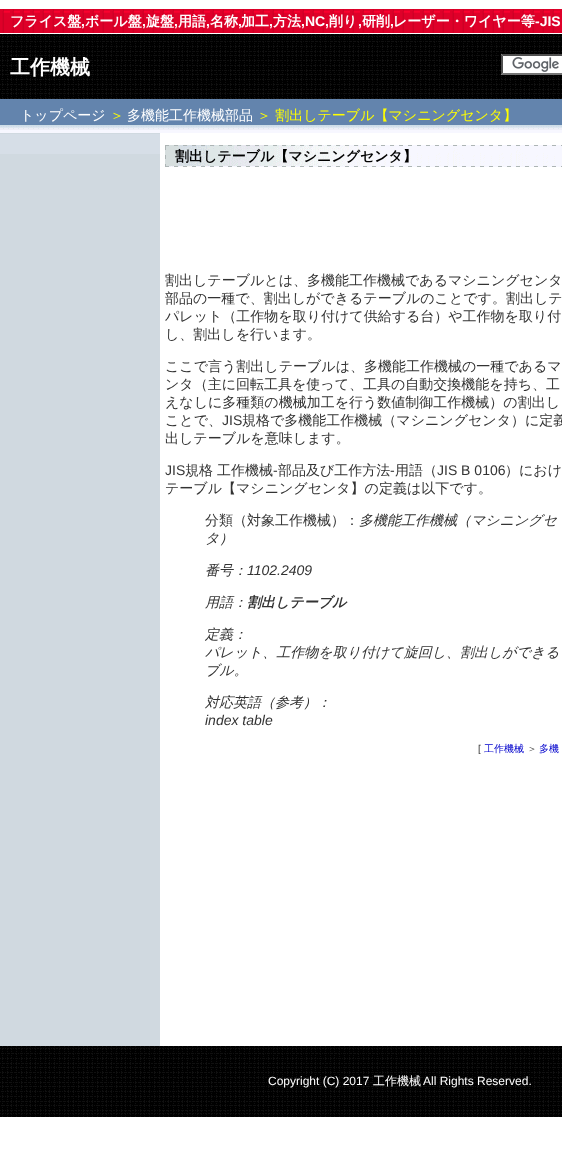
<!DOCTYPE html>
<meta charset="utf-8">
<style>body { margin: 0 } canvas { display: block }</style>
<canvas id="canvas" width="562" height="1171"></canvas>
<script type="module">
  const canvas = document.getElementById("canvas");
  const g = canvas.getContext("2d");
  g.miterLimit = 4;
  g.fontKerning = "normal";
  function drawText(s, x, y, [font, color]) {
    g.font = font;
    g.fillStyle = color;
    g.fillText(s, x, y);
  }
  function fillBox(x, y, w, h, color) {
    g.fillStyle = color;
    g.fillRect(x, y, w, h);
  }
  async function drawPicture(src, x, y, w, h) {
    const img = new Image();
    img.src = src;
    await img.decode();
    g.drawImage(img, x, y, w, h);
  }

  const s1 = ["bold 14px WenQuanYi Zen Hei", "#FFFFFF"];
  const s2 = ["bold 14px Liberation Sans", "#FFFFFF"];
  const s3 = ["bold 20px WenQuanYi Zen Hei", "#FFFFFF"];
  const s4 = ["500 14px WenQuanYi Zen Hei", "#FFFFFF"];
  const s5 = ["500 14px WenQuanYi Zen Hei", "#FFFF00"];
  const s6 = ["bold 14px WenQuanYi Zen Hei", "#000000"];
  const s7 = ["500 14px WenQuanYi Zen Hei", "#333333"];
  const s8 = ["14px Liberation Sans", "#333333"];
  const s9 = ["italic 500 14px WenQuanYi Zen Hei", "#333333"];
  const s10 = ["italic 14px Liberation Sans", "#333333"];
  const s11 = ["italic bold 14px WenQuanYi Zen Hei", "#333333"];
  const s12 = ["10px Liberation Sans", "#333333"];
  const s13 = ["500 10px WenQuanYi Zen Hei", "#0000CC"];
  const s14 = ["500 10px WenQuanYi Zen Hei", "#333333"];
  const s15 = ["12px Liberation Sans", "#FFFFFF"];
  const s16 = ["500 12px WenQuanYi Zen Hei", "#FFFFFF"];

  fillBox(0, 0, 562, 1171, "#FFFFFF");
  await drawPicture("pic1.png", 0, 9, 562, 24);
  drawText("フライス盤", 10, 26, s1);
  drawText(",", 81, 26, s2);
  drawText("ボール盤", 85, 26, s1);
  drawText(",", 142, 26, s2);
  drawText("旋盤", 146, 26, s1);
  drawText(",", 174, 26, s2);
  drawText("用語", 178, 26, s1);
  drawText(",", 206, 26, s2);
  drawText("名称", 210, 26, s1);
  drawText(",", 238, 26, s2);
  drawText("加工", 241, 26, s1);
  drawText(",", 269, 26, s2);
  drawText("方法", 273, 26, s1);
  drawText(",NC,", 301, 26, s2);
  drawText("削り", 329, 26, s1);
  drawText(",", 358, 26, s2);
  drawText("研削", 362, 26, s1);
  drawText(",", 390, 26, s2);
  drawText("レーザー・ワイヤー等", 393, 26, s1);
  drawText("-JIS", 535, 26, s2);
  await drawPicture("pic2.png", 0, 34, 562, 65);
  drawText("工作機械", 10, 74, s3);
  fillBox(501, 54, 61, 21, "#FFFFFF");
  await drawPicture("pic3.png", 512, 57, 47, 15);
  g.fillStyle = "#4F4F4F";
  g.beginPath();
  g.moveTo(501, 54);
  g.lineTo(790, 54);
  g.lineTo(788, 56);
  g.lineTo(503, 56);
  g.closePath();
  g.fill();
  g.fillStyle = "#767676";
  g.beginPath();
  g.moveTo(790, 75);
  g.lineTo(501, 75);
  g.lineTo(503, 73);
  g.lineTo(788, 73);
  g.closePath();
  g.fill();
  g.fillStyle = "#4F4F4F";
  g.beginPath();
  g.moveTo(501, 75);
  g.lineTo(501, 54);
  g.lineTo(503, 56);
  g.lineTo(503, 73);
  g.closePath();
  g.fill();
  await drawPicture("pic4.png", 0, 99, 562, 34);
  drawText("トップページ", 20, 120, s4);
  drawText("＞", 110, 120, s5);
  drawText("多機能工作機械部品", 127, 120, s4);
  drawText("＞ 割出しテーブル【マシニングセンタ】", 257, 120, s5);
  fillBox(0, 133, 160, 913, "#D0D9E0");
  fillBox(0, 134, 160, 20, "#D6DEE7");
  await drawPicture("pic5.png", 165, 145, 397, 22);
  drawText("割出しテーブル【マシニングセンタ】", 175, 161, s6);
  drawText("割出しテーブルとは、多機能工作機械であるマシニングセンタ", 165, 285, s7);
  drawText("部品の一種で、割出しができるテーブルのことです。割出しテ", 165, 303, s7);
  drawText("パレット（工作物を取り付けて供給する台）や工作物を取り付", 165, 321, s7);
  drawText("し、割出しを行います。", 165, 339, s7);
  drawText("ここで言う割出しテーブルは、多機能工作機械の一種であるマ", 165, 371, s7);
  drawText("ンタ（主に回転工具を使って、工具の自動交換機能を持ち、工", 165, 389, s7);
  drawText("えなしに多種類の機械加工を行う数値制御工作機械）の割出し", 165, 407, s7);
  drawText("ことで、", 165, 425, s7);
  drawText("JIS", 222, 425, s8);
  drawText("規格で多機能工作機械（マシニングセンタ）に定義", 242, 425, s7);
  drawText("出しテーブルを意味します。", 165, 443, s7);
  drawText("JIS", 165, 475, s8);
  drawText("規格", 185, 475, s7);
  drawText("工作機械", 217, 475, s7);
  drawText("-", 273, 475, s8);
  drawText("部品及び工作方法", 278, 475, s7);
  drawText("-", 390, 475, s8);
  drawText("用語（", 395, 475, s7);
  drawText("JIS B 0106", 437, 475, s8);
  drawText("）におけ", 505, 475, s7);
  drawText("テーブル【マシニングセンタ】の定義は以下です。", 165, 493, s7);
  drawText("分類（対象工作機械）：", 205, 525, s7);
  drawText("多機能工作機械（マシニングセ", 359, 525, s9);
  drawText("タ）", 205, 543, s9);
  drawText("番号：", 205, 575, s9);
  drawText("1102.2409", 247, 575, s10);
  drawText("用語：", 205, 607, s9);
  drawText("割出しテーブル", 247, 607, s11);
  drawText("定義：", 205, 639, s9);
  drawText("パレット、工作物を取り付けて旋回し、割出しができる", 205, 657, s9);
  drawText("ブル。", 205, 675, s9);
  drawText("対応英語（参考）：", 205, 707, s9);
  drawText("index table", 205, 725, s10);
  drawText("[", 478, 752, s12);
  drawText("工作機械", 484, 752, s13);
  drawText("＞", 527, 752, s14);
  drawText("多機", 539, 752, s13);
  await drawPicture("pic6.png", 0, 1046, 562, 71);
  drawText("Copyright (C) 2017", 268, 1085, s15);
  drawText("工作機械", 373, 1085, s16);
  drawText("All Rights Reserved.", 423, 1085, s15);
</script>
